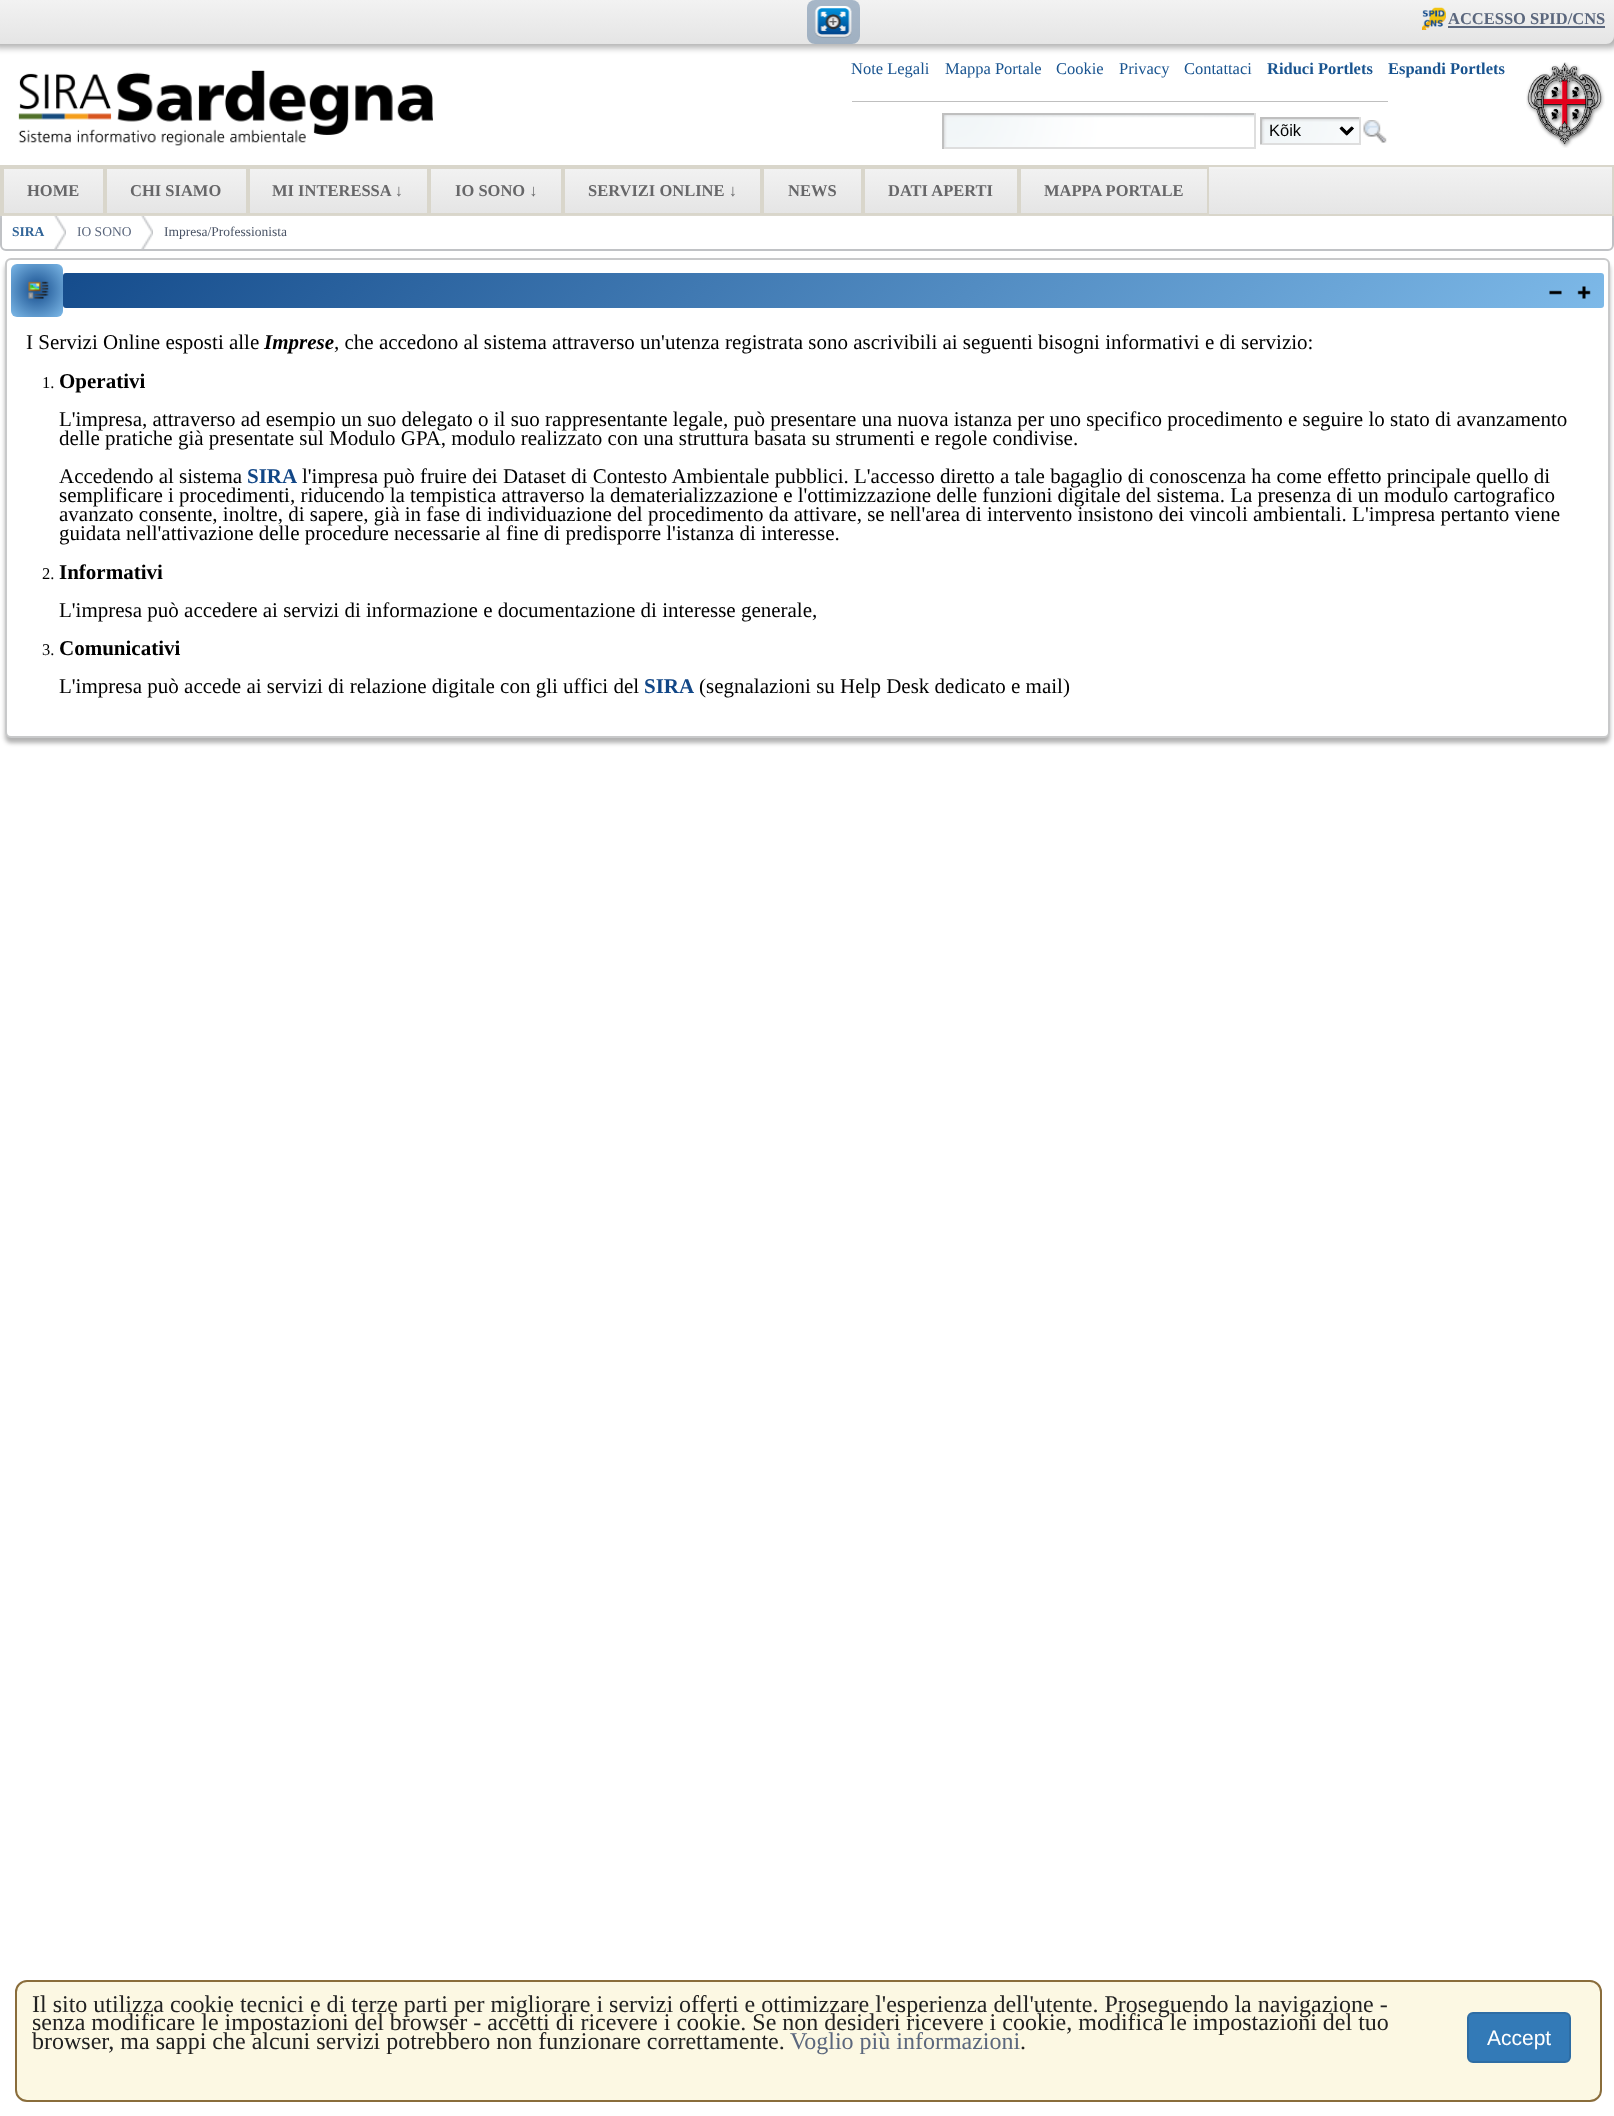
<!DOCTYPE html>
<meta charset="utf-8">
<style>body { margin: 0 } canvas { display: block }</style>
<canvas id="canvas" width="1614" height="2116"></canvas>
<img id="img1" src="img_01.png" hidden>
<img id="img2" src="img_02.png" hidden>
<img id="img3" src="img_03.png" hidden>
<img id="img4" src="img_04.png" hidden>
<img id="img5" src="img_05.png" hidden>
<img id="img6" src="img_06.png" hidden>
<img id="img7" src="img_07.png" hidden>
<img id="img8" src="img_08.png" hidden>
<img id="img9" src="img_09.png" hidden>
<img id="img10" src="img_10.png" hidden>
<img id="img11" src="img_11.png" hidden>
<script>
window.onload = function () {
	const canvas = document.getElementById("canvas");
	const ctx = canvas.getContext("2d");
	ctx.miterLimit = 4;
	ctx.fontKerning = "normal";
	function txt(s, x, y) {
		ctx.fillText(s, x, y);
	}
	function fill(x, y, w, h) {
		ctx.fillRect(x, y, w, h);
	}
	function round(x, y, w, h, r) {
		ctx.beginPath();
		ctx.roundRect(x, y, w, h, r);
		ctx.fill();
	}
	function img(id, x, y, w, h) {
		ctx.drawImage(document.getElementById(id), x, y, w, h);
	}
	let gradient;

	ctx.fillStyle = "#FFFFFF";
	fill(0, 0, 1614, 2116);
	ctx.fillStyle = "rgba(0, 0, 0, 0.3)";
	ctx.filter = "blur(3px)";
	ctx.beginPath();
	ctx.roundRect(-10, 5, 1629, 43, 8);
	ctx.fill();
	ctx.filter = "none";
	gradient = ctx.createLinearGradient(800, 0, 800, 44);
	gradient.addColorStop(0, "#F2F2F2");
	gradient.addColorStop(1, "#E5E5E5");
	ctx.fillStyle = gradient;
	ctx.beginPath();
	ctx.moveTo(-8, 0);
	ctx.lineTo(1614, 0);
	ctx.lineTo(1614, 36);
	ctx.bezierCurveTo(1614, 40.5, 1610.5, 44, 1606, 44);
	ctx.lineTo(0, 44);
	ctx.bezierCurveTo(-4.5, 44, -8, 40.5, -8, 36);
	ctx.closePath();
	ctx.fill();
	ctx.fillStyle = "rgba(92, 124, 157, 0.5)";
	round(807, 0, 53, 44, 8);
	img("img1", 814, 6, 38, 32);
	img("img2", 1422, 7, 24, 23);
	ctx.fillStyle = "#5B677D";
	fill(1448, 26, 157, 2);
	img("img3", 18, 70, 415, 76);
	ctx.fillStyle = "#BFBFBF";
	fill(852, 101, 536, 1);
	img("img4", 944, 115, 310, 32);
	fill(942, 113, 314, 2);
	ctx.fillStyle = "#DEDEDE";
	fill(1254, 113, 2, 36);
	fill(942, 147, 314, 2);
	ctx.fillStyle = "#BFBFBF";
	fill(942, 113, 2, 36);
	img("img5", 1262, 119, 97, 24);
	fill(1260, 117, 101, 2);
	ctx.fillStyle = "#DEDEDE";
	fill(1359, 117, 2, 27);
	fill(1260, 143, 101, 2);
	ctx.fillStyle = "#BFBFBF";
	fill(1260, 117, 2, 27);
	ctx.beginPath();
	ctx.moveTo(1340.5, 127.5);
	ctx.lineTo(1346.5, 133.5);
	ctx.lineTo(1352.5, 127.5);
	ctx.strokeStyle = "#000000";
	ctx.lineWidth = 3;
	ctx.stroke();
	img("img6", 1363, 120, 24, 23);
	img("img7", 1526, 62, 79, 86);
	ctx.beginPath();
	ctx.roundRect(1, 181, 1612, 69, 5);
	ctx.strokeStyle = "#C0C2C5";
	ctx.lineWidth = 2;
	ctx.stroke();
	img("img8", 54, 216, 12, 33);
	img("img8", 141, 216, 12, 33);
	ctx.fillStyle = "rgba(255, 255, 255, 0.07)";
	fill(0, 216, 1614, 2);
	gradient = ctx.createLinearGradient(807, 166, 807, 215);
	gradient.addColorStop(0, "#F2F2F2");
	gradient.addColorStop(1, "#E5E5E5");
	ctx.fillStyle = gradient;
	fill(1209, 169, 403, 45);
	ctx.fillStyle = "#F3F3F3";
	fill(1209, 167, 404, 2);
	ctx.strokeStyle = "#D9D6CB";
	ctx.strokeRect(1, 166, 1612, 49);
	ctx.fillStyle = "#DCD9CF";
	fill(2, 215, 103, 1);
	gradient = ctx.createLinearGradient(53, 168, 53, 213);
	gradient.addColorStop(0, "#F2F2F2");
	gradient.addColorStop(1, "#E5E5E5");
	ctx.fillStyle = gradient;
	fill(4, 169, 99, 44);
	ctx.strokeRect(3, 168, 101, 46);
	ctx.fillStyle = "#DCD9CF";
	ctx.beginPath();
	ctx.moveTo(105, 214);
	ctx.lineTo(105, 216);
	ctx.lineTo(248, 216);
	ctx.lineTo(248, 168);
	ctx.lineTo(248, 214);
	ctx.closePath();
	ctx.fill();
	gradient = ctx.createLinearGradient(176, 168, 176, 213);
	gradient.addColorStop(0, "#F2F2F2");
	gradient.addColorStop(1, "#E5E5E5");
	ctx.fillStyle = gradient;
	fill(107, 169, 139, 44);
	ctx.strokeRect(106, 168, 141, 46);
	ctx.fillStyle = "#DCD9CF";
	fill(248, 215, 181, 1);
	gradient = ctx.createLinearGradient(338, 168, 338, 213);
	gradient.addColorStop(0, "#F2F2F2");
	gradient.addColorStop(1, "#E5E5E5");
	ctx.fillStyle = gradient;
	fill(250, 169, 177, 44);
	ctx.strokeRect(249, 168, 179, 46);
	ctx.fillStyle = "rgba(255, 255, 255, 0.07)";
	ctx.beginPath();
	ctx.moveTo(429, 214);
	ctx.lineTo(429, 216);
	ctx.lineTo(563, 216);
	ctx.lineTo(563, 168);
	ctx.lineTo(562, 168);
	ctx.lineTo(562, 214);
	ctx.closePath();
	ctx.fill();
	gradient = ctx.createLinearGradient(496, 168, 496, 213);
	gradient.addColorStop(0, "#F2F2F2");
	gradient.addColorStop(1, "#E5E5E5");
	ctx.fillStyle = gradient;
	fill(431, 169, 130, 44);
	ctx.strokeRect(430, 168, 132, 46);
	ctx.fillStyle = "#DCD9CF";
	fill(563, 215, 199, 1);
	gradient = ctx.createLinearGradient(662, 168, 662, 213);
	gradient.addColorStop(0, "#F2F2F2");
	gradient.addColorStop(1, "#E5E5E5");
	ctx.fillStyle = gradient;
	fill(565, 169, 195, 44);
	ctx.strokeRect(564, 168, 197, 46);
	ctx.fillStyle = "rgba(255, 255, 255, 0.07)";
	ctx.beginPath();
	ctx.moveTo(762, 214);
	ctx.lineTo(762, 216);
	ctx.lineTo(863, 216);
	ctx.lineTo(863, 168);
	ctx.lineTo(862, 168);
	ctx.lineTo(862, 214);
	ctx.closePath();
	ctx.fill();
	gradient = ctx.createLinearGradient(812, 168, 812, 213);
	gradient.addColorStop(0, "#F2F2F2");
	gradient.addColorStop(1, "#E5E5E5");
	ctx.fillStyle = gradient;
	fill(764, 169, 97, 44);
	ctx.strokeRect(763, 168, 99, 46);
	ctx.fillStyle = "rgba(255, 255, 255, 0.07)";
	ctx.beginPath();
	ctx.moveTo(863, 214);
	ctx.lineTo(863, 216);
	ctx.lineTo(1019, 216);
	ctx.lineTo(1019, 168);
	ctx.lineTo(1018, 168);
	ctx.lineTo(1018, 214);
	ctx.closePath();
	ctx.fill();
	gradient = ctx.createLinearGradient(941, 168, 941, 213);
	gradient.addColorStop(0, "#F2F2F2");
	gradient.addColorStop(1, "#E5E5E5");
	ctx.fillStyle = gradient;
	fill(865, 169, 152, 44);
	ctx.strokeRect(864, 168, 154, 46);
	ctx.fillStyle = "#DCD9CF";
	fill(1019, 215, 190, 1);
	gradient = ctx.createLinearGradient(1114, 168, 1114, 213);
	gradient.addColorStop(0, "#F2F2F2");
	gradient.addColorStop(1, "#E5E5E5");
	ctx.fillStyle = gradient;
	fill(1021, 169, 186, 44);
	ctx.strokeRect(1020, 168, 188, 46);
	ctx.fillStyle = "rgba(0, 0, 0, 0.3)";
	ctx.filter = "blur(2px)";
	ctx.beginPath();
	ctx.roundRect(5, 263, 1605, 480, 6);
	ctx.fill();
	ctx.filter = "none";
	ctx.fillStyle = "#FFFFFF";
	ctx.beginPath();
	ctx.roundRect(6, 259, 1603, 478, 5);
	ctx.fill();
	ctx.strokeStyle = "#C8C9CA";
	ctx.stroke();
	gradient = ctx.createRadialGradient(37, 290, 0, 37, 290, 37);
	gradient.addColorStop(0, "#154C8C");
	gradient.addColorStop(1, "#7DB9E8");
	ctx.fillStyle = gradient;
	round(11, 264, 52, 53, 6);
	img("img9", 28, 281, 21, 18);
	gradient = ctx.createLinearGradient(439, -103, 1227, 684);
	gradient.addColorStop(0, "#154C8C");
	gradient.addColorStop(1, "#7DB9E8");
	ctx.fillStyle = gradient;
	round(63, 273, 1541, 35, 3);
	img("img10", 1549, 290, 13, 5);
	img("img11", 1577, 286, 14, 13);
	ctx.fillStyle = "#FCF8E3";
	ctx.beginPath();
	ctx.roundRect(16, 1981, 1585, 120, 11);
	ctx.fill();
	ctx.strokeStyle = "#8A6D3B";
	ctx.stroke();
	ctx.fillStyle = "#337AB7";
	ctx.beginPath();
	ctx.roundRect(1468, 2013, 102, 49, 5);
	ctx.fill();
	ctx.strokeStyle = "#2E6DA4";
	ctx.stroke();
	ctx.font = "bold 16.5px Liberation Serif";
	ctx.fillStyle = "#5B677D";
	txt("ACCESSO SPID/CNS", 1448, 24);
	ctx.font = "16.5px Liberation Serif";
	ctx.fillStyle = "#195490";
	txt("Note Legali", 851, 74);
	txt("Mappa Portale", 945, 74);
	txt("Cookie", 1056, 74);
	txt("Privacy", 1119, 74);
	txt("Contattaci", 1184, 74);
	ctx.font = "bold 16.5px Liberation Serif";
	txt("Riduci Portlets", 1267, 74);
	txt("Espandi Portlets", 1388, 74);
	ctx.font = "16.5px Liberation Sans";
	ctx.fillStyle = "#000000";
	txt("Kõik", 1269, 136);
	ctx.font = "bold 16.5px Liberation Serif";
	ctx.fillStyle = "#676769";
	txt("HOME", 27, 196);
	txt("CHI SIAMO", 130, 196);
	txt("MI INTERESSA ↓", 272, 196);
	txt("IO SONO ↓", 455, 196);
	txt("SERVIZI ONLINE ↓", 588, 196);
	txt("NEWS", 788, 196);
	txt("DATI APERTI", 888, 196);
	txt("MAPPA PORTALE", 1044, 196);
	ctx.font = "bold 13.5px Liberation Serif";
	ctx.fillStyle = "#336699";
	txt("SIRA", 12, 236);
	ctx.font = "13.5px Liberation Serif";
	ctx.fillStyle = "#5B677D";
	txt("IO SONO", 77, 236);
	ctx.fillStyle = "#4B5567";
	txt("Impresa/Professionista", 164, 236);
	ctx.font = "21px Liberation Serif";
	ctx.fillStyle = "#000000";
	txt("I Servizi Online esposti alle", 26, 349);
	ctx.font = "italic bold 21px Liberation Serif";
	txt("Imprese", 264, 349);
	ctx.font = "21px Liberation Serif";
	txt(", che accedono al sistema attraverso un'utenza registrata sono ascrivibili ai seguenti bisogni informativi e di servizio:", 334, 349);
	ctx.font = "16.5px Liberation Serif";
	txt("1.", 42, 388);
	ctx.font = "bold 21px Liberation Serif";
	txt("Operativi", 59, 388);
	ctx.font = "21px Liberation Serif";
	txt("L'impresa, attraverso ad esempio un suo delegato o il suo rappresentante legale, può presentare una nuova istanza per uno specifico procedimento e seguire lo stato di avanzamento", 59, 426);
	txt("delle pratiche già presentate sul Modulo GPA, modulo realizzato con una struttura basata su strumenti e regole condivise.", 59, 445);
	txt("Accedendo al sistema", 59, 483);
	ctx.font = "bold 21px Liberation Serif";
	ctx.fillStyle = "#114686";
	txt("SIRA", 247, 483);
	ctx.font = "21px Liberation Serif";
	ctx.fillStyle = "#000000";
	txt("l'impresa può fruire dei Dataset di Contesto Ambientale pubblici. L'accesso diretto a tale bagaglio di conoscenza ha come effetto principale quello di", 302, 483);
	txt("semplificare i procedimenti, riducendo la tempistica attraverso la dematerializzazione e l'ottimizzazione delle funzioni digitale del sistema. La presenza di un modulo cartografico", 59, 502);
	txt("avanzato consente, inoltre, di sapere, già in fase di individuazione del procedimento da attivare, se nell'area di intervento insistono dei vincoli ambientali. L'impresa pertanto viene", 59, 521);
	txt("guidata nell'attivazione delle procedure necessarie al fine di predisporre l'istanza di interesse.", 59, 540);
	ctx.font = "16.5px Liberation Serif";
	txt("2.", 42, 579);
	ctx.font = "bold 21px Liberation Serif";
	txt("Informativi", 59, 579);
	ctx.font = "21px Liberation Serif";
	txt("L'impresa può accedere ai servizi di informazione e documentazione di interesse generale,", 59, 617);
	ctx.font = "16.5px Liberation Serif";
	txt("3.", 42, 655);
	ctx.font = "bold 21px Liberation Serif";
	txt("Comunicativi", 59, 655);
	ctx.font = "21px Liberation Serif";
	txt("L'impresa può accede ai servizi di relazione digitale con gli uffici del", 59, 693);
	ctx.font = "bold 21px Liberation Serif";
	ctx.fillStyle = "#114686";
	txt("SIRA", 644, 693);
	ctx.font = "21px Liberation Serif";
	ctx.fillStyle = "#000000";
	txt("(segnalazioni su Help Desk dedicato e mail)", 699, 693);
	ctx.font = "24px Liberation Serif";
	ctx.fillStyle = "#222222";
	txt("Il sito utilizza cookie tecnici e di terze parti per migliorare i servizi offerti e ottimizzare l'esperienza dell'utente. Proseguendo la navigazione -", 32, 2012);
	txt("senza modificare le impostazioni del browser - accetti di ricevere i cookie. Se non desideri ricevere i cookie, modifica le impostazioni del tuo", 32, 2030);
	txt("browser, ma sappi che alcuni servizi potrebbero non funzionare correttamente.", 32, 2049);
	ctx.fillStyle = "#5B677D";
	txt("Voglio più informazioni", 790, 2049);
	ctx.fillStyle = "#222222";
	txt(".", 1020, 2049);
	ctx.font = "21px Liberation Sans";
	ctx.fillStyle = "#FFFFFF";
	txt("Accept", 1487, 2045);
};
</script>
